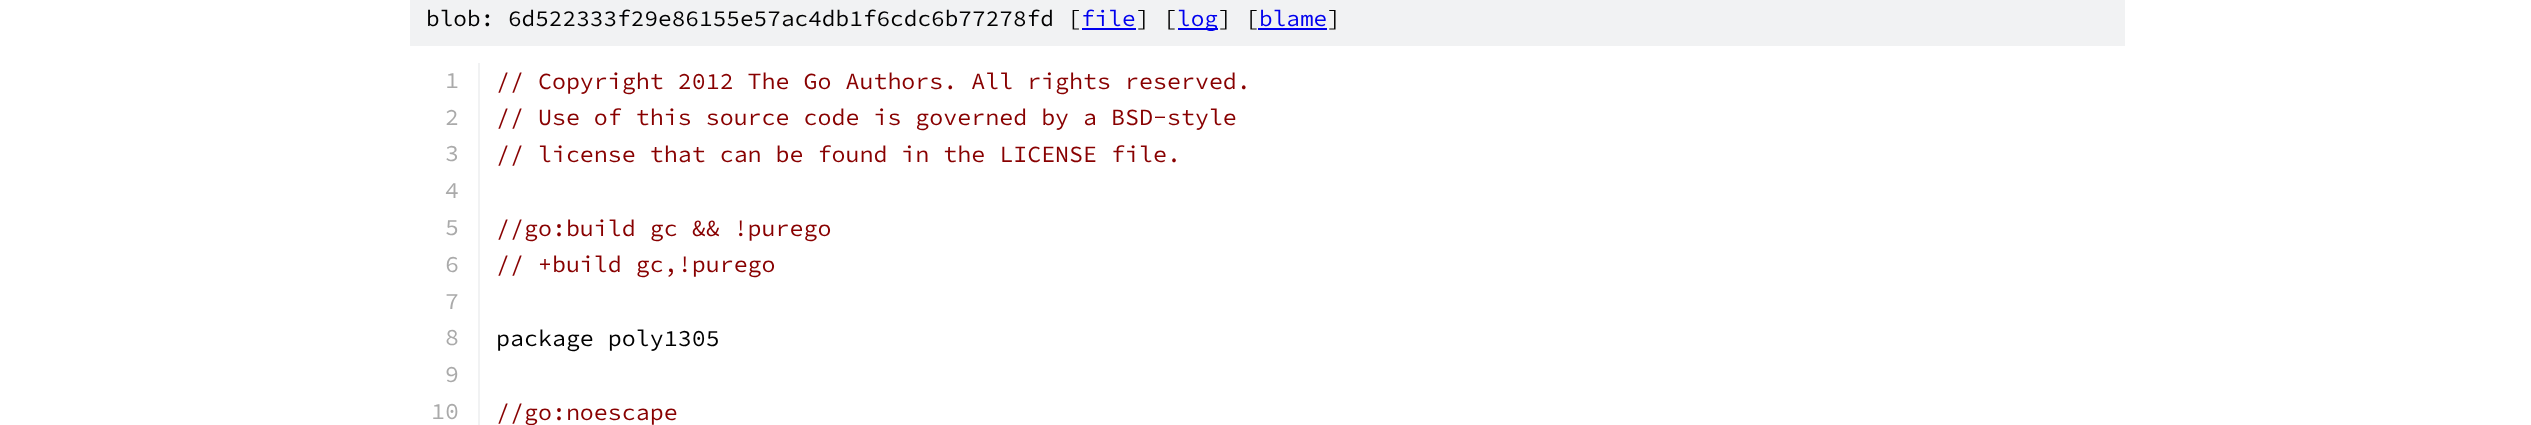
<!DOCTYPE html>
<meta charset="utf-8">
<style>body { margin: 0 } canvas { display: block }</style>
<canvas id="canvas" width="2531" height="425"></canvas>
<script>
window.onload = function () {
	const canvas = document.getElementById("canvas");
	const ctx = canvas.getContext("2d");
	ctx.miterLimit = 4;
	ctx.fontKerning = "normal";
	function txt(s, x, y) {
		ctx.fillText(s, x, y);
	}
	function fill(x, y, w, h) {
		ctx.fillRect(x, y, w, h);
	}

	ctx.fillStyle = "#FFFFFF";
	fill(0, 0, 2531, 425);
	ctx.fillStyle = "#F1F2F3";
	fill(410, 0, 1715, 46);
	ctx.fillStyle = "#0000EE";
	fill(1082, 28, 54, 2);
	fill(1178, 28, 40, 2);
	fill(1258, 28, 69, 2);
	ctx.fillStyle = "#F1F2F3";
	fill(478, 63, 2, 362);
	ctx.font = "200 22.75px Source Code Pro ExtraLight";
	ctx.fillStyle = "#000000";
	txt("blob: 6d522333f29e86155e57ac4db1f6cdc6b77278fd [", 426, 26);
	ctx.fillStyle = "#0000EE";
	txt("file", 1081, 26);
	ctx.fillStyle = "#000000";
	txt("] [", 1136, 26);
	ctx.fillStyle = "#0000EE";
	txt("log", 1177, 26);
	ctx.fillStyle = "#000000";
	txt("] [", 1218, 26);
	ctx.fillStyle = "#0000EE";
	txt("blame", 1259, 26);
	ctx.fillStyle = "#000000";
	txt("]", 1327, 26);
	ctx.font = "200 23.3px Source Code Pro ExtraLight";
	ctx.fillStyle = "#AAAAAA";
	txt("1", 445, 88);
	ctx.fillStyle = "#880000";
	txt("// Copyright 2012 The Go Authors. All rights reserved.", 496, 89);
	ctx.fillStyle = "#AAAAAA";
	txt("2", 445, 125);
	ctx.fillStyle = "#880000";
	txt("// Use of this source code is governed by a BSD-style", 496, 125);
	ctx.fillStyle = "#AAAAAA";
	txt("3", 445, 161);
	ctx.fillStyle = "#880000";
	txt("// license that can be found in the LICENSE file.", 496, 162);
	ctx.fillStyle = "#AAAAAA";
	txt("4", 445, 198);
	txt("5", 445, 235);
	ctx.fillStyle = "#880000";
	txt("//go:build gc && !purego", 496, 236);
	ctx.fillStyle = "#AAAAAA";
	txt("6", 445, 272);
	ctx.fillStyle = "#880000";
	txt("// +build gc,!purego", 496, 272);
	ctx.fillStyle = "#AAAAAA";
	txt("7", 445, 309);
	txt("8", 445, 345);
	ctx.fillStyle = "#000000";
	txt("package poly1305", 496, 346);
	ctx.fillStyle = "#AAAAAA";
	txt("9", 445, 382);
	txt("10", 431, 419);
	ctx.fillStyle = "#880000";
	txt("//go:noescape", 496, 420);
};
</script>
